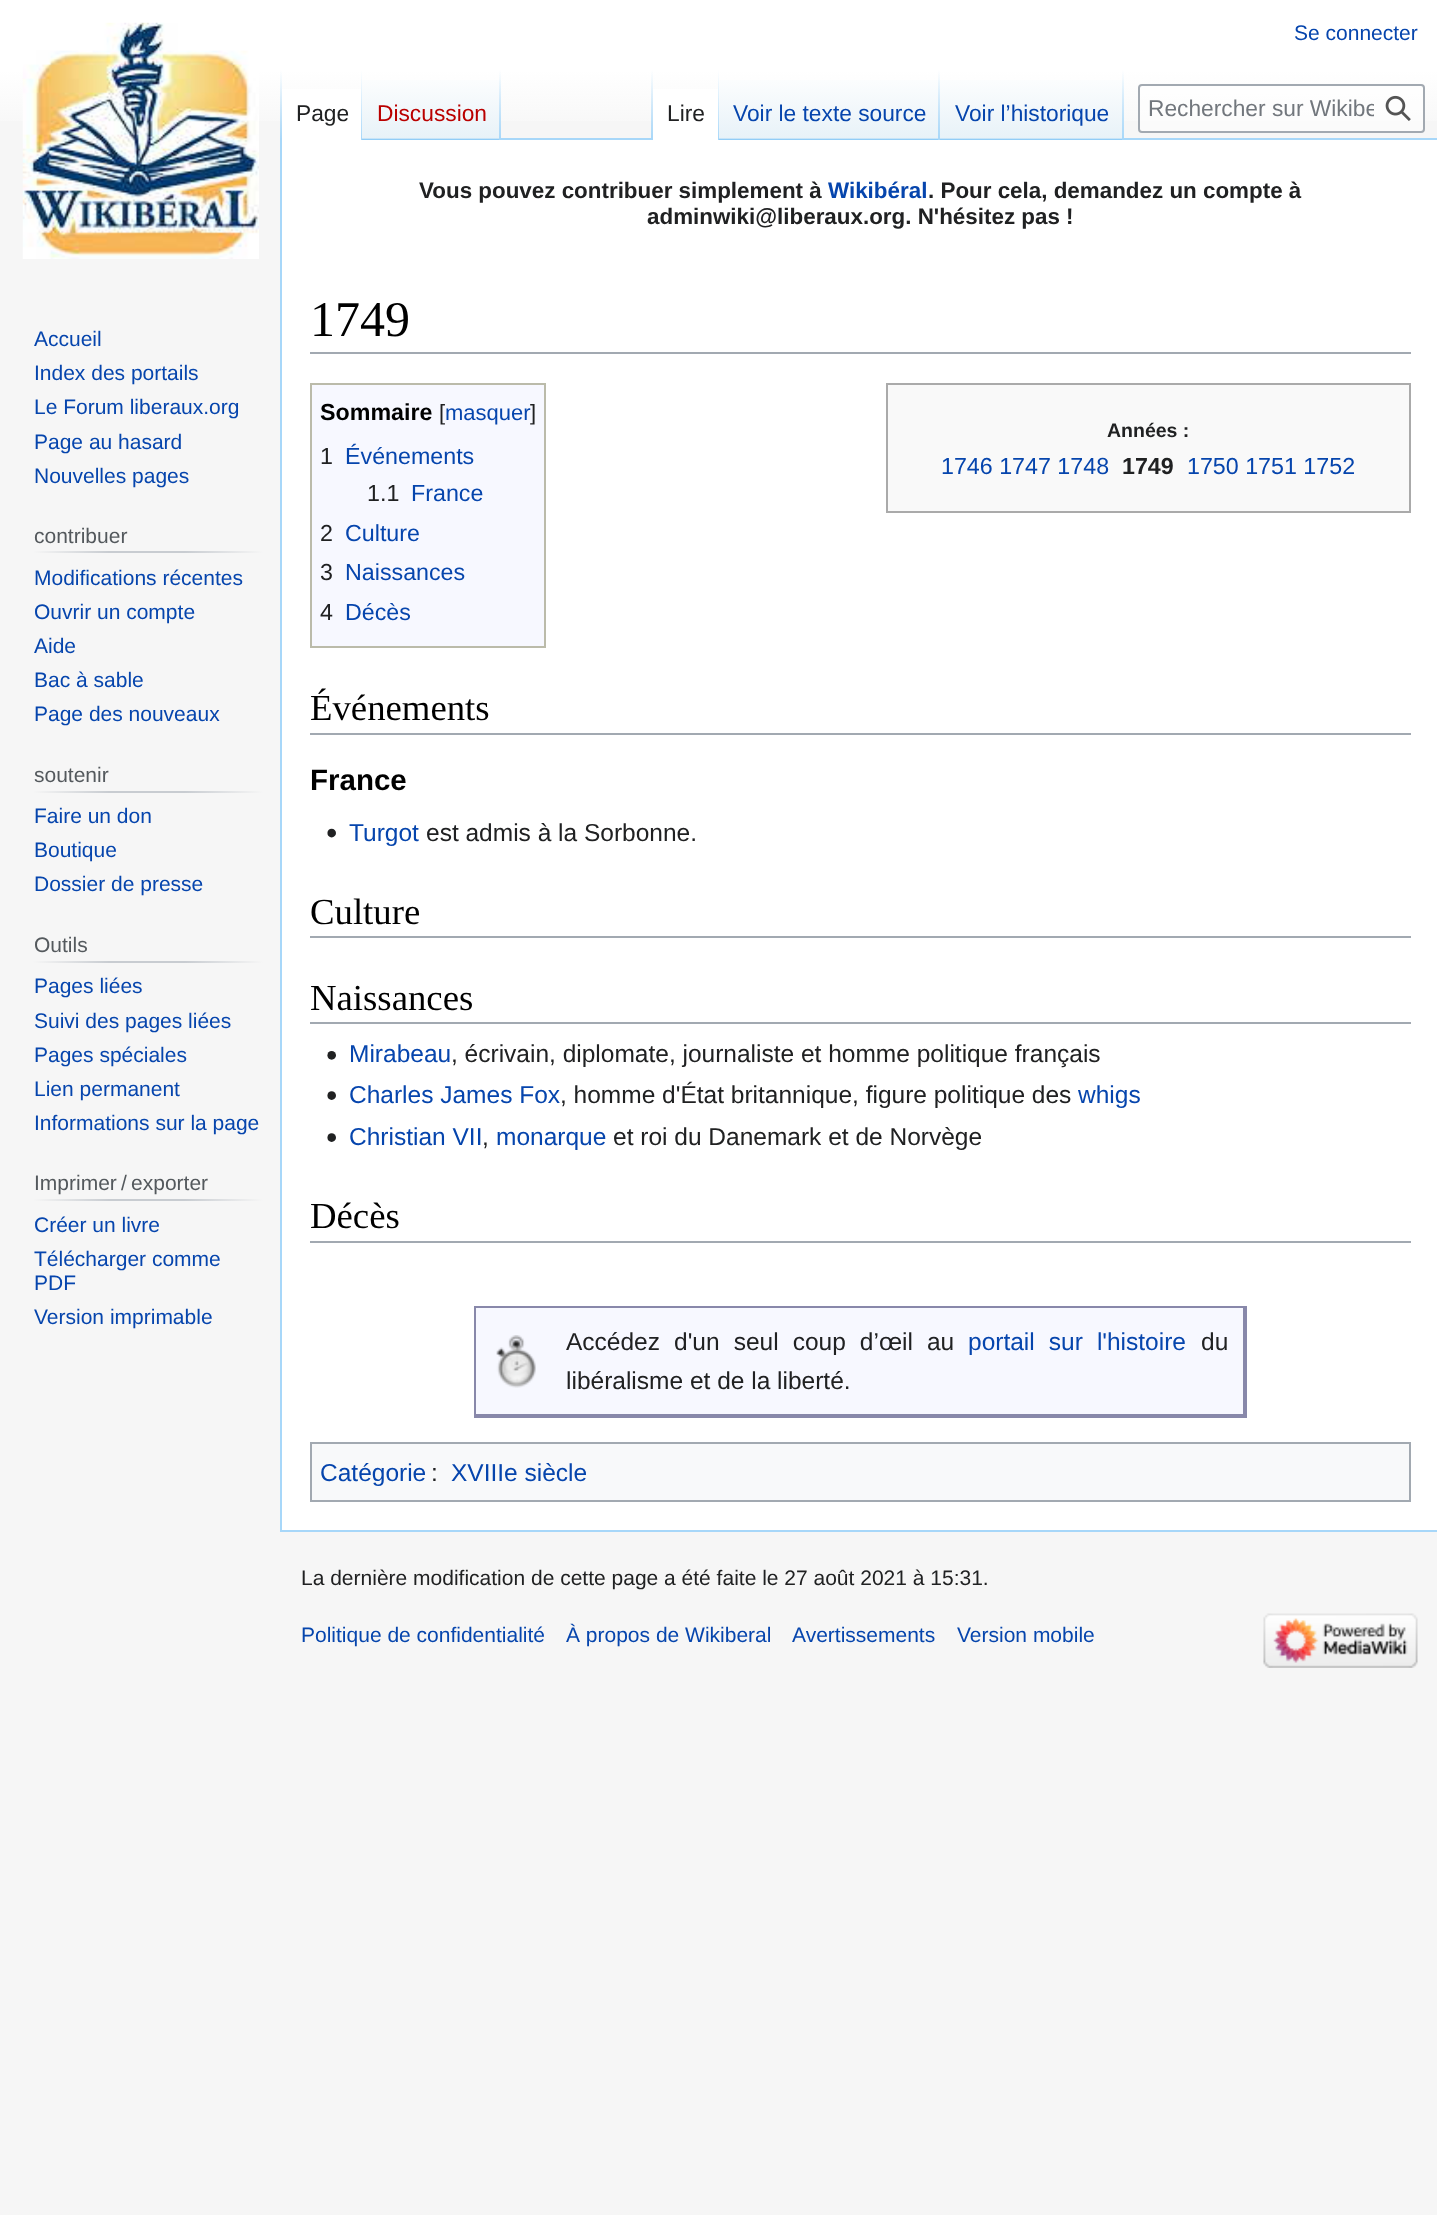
<!DOCTYPE html>
<meta charset="utf-8">
<style>body { margin: 0 } canvas { display: block }</style>
<canvas id="canvas" width="1437" height="2215"></canvas>
<img id="img1" src="img_01.png" hidden>
<img id="img2" src="img_02.png" hidden>
<img id="img3" src="img_03.png" hidden>
<img id="img4" src="img_04.png" hidden>
<img id="img5" src="img_05.png" hidden>
<img id="img6" src="img_06.png" hidden>
<img id="img7" src="img_07.png" hidden>
<script>
window.onload = function () {
	const canvas = document.getElementById("canvas");
	const ctx = canvas.getContext("2d");
	ctx.miterLimit = 4;
	ctx.fontKerning = "normal";
	function txt(s, x, y) {
		ctx.fillText(s, x, y);
	}
	function fill(x, y, w, h) {
		ctx.fillRect(x, y, w, h);
	}
	function img(id, x, y, w, h) {
		ctx.drawImage(document.getElementById(id), x, y, w, h);
	}
	let gradient;

	ctx.fillStyle = "#F6F6F6";
	fill(0, 0, 1437, 2215);
	gradient = ctx.createLinearGradient(719, 0, 719, 140);
	gradient.addColorStop(0.5, "#FFFFFF");
	gradient.addColorStop(1, "#F6F6F6");
	ctx.fillStyle = gradient;
	fill(0, 0, 1437, 121);
	ctx.fillStyle = "#A7D7F9";
	fill(280, 1530, 1157, 2);
	fill(280, 138, 2, 1393);
	gradient = ctx.createLinearGradient(281, 70, 281, 140);
	gradient.addColorStop(0, "rgba(167, 215, 249, 0)");
	gradient.addColorStop(1, "#A7D7F9");
	ctx.fillStyle = gradient;
	fill(280, 70, 2, 70);
	ctx.fillStyle = "#FFFFFF";
	fill(282, 89, 79, 51);
	gradient = ctx.createLinearGradient(361, 70, 361, 140);
	gradient.addColorStop(0, "#FFFFFF");
	gradient.addColorStop(1, "#A7D7F9");
	ctx.fillStyle = gradient;
	fill(361, 70, 1, 70);
	gradient = ctx.createLinearGradient(431, 140, 431, 70);
	gradient.addColorStop(0, "#77C1F6");
	gradient.addColorStop(0.03, "#E8F2F8");
	gradient.addColorStop(1, "#FFFFFF");
	ctx.fillStyle = gradient;
	fill(362, 80, 139, 60);
	gradient = ctx.createLinearGradient(500, 70, 500, 140);
	gradient.addColorStop(0, "rgba(167, 215, 249, 0)");
	gradient.addColorStop(1, "#A7D7F9");
	ctx.fillStyle = gradient;
	fill(499, 70, 2, 70);
	ctx.fillStyle = "#A7D7F9";
	fill(501, 138, 936, 2);
	gradient = ctx.createLinearGradient(652, 70, 652, 140);
	gradient.addColorStop(0, "rgba(167, 215, 249, 0)");
	gradient.addColorStop(1, "#A7D7F9");
	ctx.fillStyle = gradient;
	fill(651, 70, 2, 70);
	ctx.fillStyle = "#FFFFFF";
	fill(653, 89, 65, 51);
	gradient = ctx.createLinearGradient(718, 70, 718, 140);
	gradient.addColorStop(0, "#FFFFFF");
	gradient.addColorStop(1, "#A7D7F9");
	ctx.fillStyle = gradient;
	fill(718, 70, 1, 70);
	gradient = ctx.createLinearGradient(830, 140, 830, 70);
	gradient.addColorStop(0, "#77C1F6");
	gradient.addColorStop(0.03, "#E8F2F8");
	gradient.addColorStop(1, "#FFFFFF");
	ctx.fillStyle = gradient;
	fill(719, 80, 221, 60);
	gradient = ctx.createLinearGradient(939, 70, 939, 140);
	gradient.addColorStop(0, "rgba(167, 215, 249, 0)");
	gradient.addColorStop(1, "#A7D7F9");
	ctx.fillStyle = gradient;
	fill(938, 70, 2, 70);
	gradient = ctx.createLinearGradient(1032, 140, 1032, 70);
	gradient.addColorStop(0, "#77C1F6");
	gradient.addColorStop(0.03, "#E8F2F8");
	gradient.addColorStop(1, "#FFFFFF");
	ctx.fillStyle = gradient;
	fill(940, 80, 184, 60);
	gradient = ctx.createLinearGradient(1123, 70, 1123, 140);
	gradient.addColorStop(0, "rgba(167, 215, 249, 0)");
	gradient.addColorStop(1, "#A7D7F9");
	ctx.fillStyle = gradient;
	fill(1122, 70, 2, 70);
	ctx.fillStyle = "rgba(255, 255, 255, 0.5)";
	ctx.beginPath();
	ctx.roundRect(1139, 85, 285, 47, 3);
	ctx.fill();
	ctx.strokeStyle = "#A2A9B1";
	ctx.lineWidth = 2;
	ctx.stroke();
	img("img1", 1385, 95, 26, 26);
	img("img2", 22, 22, 237, 237);
	gradient = ctx.createLinearGradient(33, 552, 263, 552);
	gradient.addColorStop(0, "#F6F6F6");
	gradient.addColorStop(0.33, "#C8CCD1");
	gradient.addColorStop(0.66, "#C8CCD1");
	gradient.addColorStop(1, "#F6F6F6");
	ctx.fillStyle = gradient;
	fill(33, 551, 230, 2);
	gradient = ctx.createLinearGradient(33, 792, 263, 792);
	gradient.addColorStop(0, "#F6F6F6");
	gradient.addColorStop(0.33, "#C8CCD1");
	gradient.addColorStop(0.66, "#C8CCD1");
	gradient.addColorStop(1, "#F6F6F6");
	ctx.fillStyle = gradient;
	fill(33, 791, 230, 2);
	gradient = ctx.createLinearGradient(33, 962, 263, 962);
	gradient.addColorStop(0, "#F6F6F6");
	gradient.addColorStop(0.33, "#C8CCD1");
	gradient.addColorStop(0.66, "#C8CCD1");
	gradient.addColorStop(1, "#F6F6F6");
	ctx.fillStyle = gradient;
	fill(33, 961, 230, 2);
	gradient = ctx.createLinearGradient(33, 1200, 263, 1200);
	gradient.addColorStop(0, "#F6F6F6");
	gradient.addColorStop(0.33, "#C8CCD1");
	gradient.addColorStop(0.66, "#C8CCD1");
	gradient.addColorStop(1, "#F6F6F6");
	ctx.fillStyle = gradient;
	fill(33, 1199, 230, 2);
	ctx.fillStyle = "#FFFFFF";
	fill(282, 140, 1155, 1390);
	ctx.fillStyle = "#A2A9B1";
	fill(310, 352, 1101, 2);
	ctx.fillStyle = "#F7F8FF";
	ctx.beginPath();
	ctx.rect(311, 384, 234, 263);
	ctx.fill();
	ctx.strokeStyle = "#BBBBAA";
	ctx.stroke();
	ctx.fillStyle = "#F9F9F9";
	ctx.beginPath();
	ctx.rect(887, 384, 523, 128);
	ctx.fill();
	ctx.strokeStyle = "#AAAAAA";
	ctx.stroke();
	ctx.fillStyle = "#A2A9B1";
	fill(310, 733, 1101, 2);
	img("img3", 327, 828, 9, 10);
	fill(310, 936, 1101, 2);
	fill(310, 1022, 1101, 2);
	img("img4", 327, 1051, 9, 9);
	img("img5", 327, 1091, 9, 9);
	img("img5", 327, 1133, 9, 9);
	fill(310, 1241, 1101, 2);
	ctx.fillStyle = "#F7F8FF";
	fill(476, 1308, 767, 106);
	ctx.fillStyle = "#8888AA";
	fill(474, 1306, 772, 2);
	fill(1243, 1306, 4, 112);
	fill(474, 1414, 772, 4);
	fill(474, 1306, 2, 112);
	img("img6", 496, 1335, 40, 53);
	ctx.fillStyle = "#F8F9FA";
	ctx.beginPath();
	ctx.rect(311, 1443, 1099, 58);
	ctx.fill();
	ctx.strokeStyle = "#A2A9B1";
	ctx.stroke();
	img("img7", 1263, 1613, 155, 55);
	ctx.font = "21px Liberation Sans";
	ctx.fillStyle = "#0645AD";
	txt("Se connecter", 1294, 40);
	ctx.font = "22.75px Liberation Sans";
	ctx.fillStyle = "#202122";
	txt("Page", 296, 121);
	ctx.fillStyle = "#BA0000";
	txt("Discussion", 377, 121);
	ctx.fillStyle = "#202122";
	txt("Lire", 667, 121);
	ctx.fillStyle = "#0645AD";
	txt("Voir le texte source", 733, 121);
	txt("Voir l’historique", 955, 121);
	ctx.save();
	ctx.beginPath();
	ctx.rect(1148, 96, 226, 27);
	ctx.clip();
	ctx.fillStyle = "#72777D";
	txt("Rechercher sur Wikibe", 1148, 116);
	ctx.restore();
	ctx.font = "21px Liberation Sans";
	txt("Accueil", 34, 346);
	txt("Index des portails", 34, 380);
	txt("Le Forum liberaux.org", 34, 414);
	txt("Page au hasard", 34, 449);
	txt("Nouvelles pages", 34, 483);
	ctx.fillStyle = "#54595D";
	txt("contribuer", 34, 543);
	ctx.fillStyle = "#0645AD";
	txt("Modifications récentes", 34, 585);
	txt("Ouvrir un compte", 34, 619);
	txt("Aide", 34, 653);
	txt("Bac à sable", 34, 687);
	txt("Page des nouveaux", 34, 721);
	ctx.fillStyle = "#54595D";
	txt("soutenir", 34, 782);
	ctx.fillStyle = "#0645AD";
	txt("Faire un don", 34, 823);
	txt("Boutique", 34, 857);
	txt("Dossier de presse", 34, 891);
	ctx.fillStyle = "#54595D";
	txt("Outils", 34, 952);
	ctx.fillStyle = "#0645AD";
	txt("Pages liées", 34, 993);
	txt("Suivi des pages liées", 34, 1028);
	txt("Pages spéciales", 34, 1062);
	txt("Lien permanent", 34, 1096);
	txt("Informations sur la page", 34, 1130);
	ctx.fillStyle = "#54595D";
	txt("Imprimer / exporter", 34, 1190);
	ctx.fillStyle = "#0645AD";
	txt("Créer un livre", 34, 1232);
	txt("Télécharger comme", 34, 1266);
	txt("PDF", 34, 1290);
	txt("Version imprimable", 34, 1324);
	ctx.font = "bold 22.4px Liberation Sans";
	ctx.fillStyle = "#202122";
	txt("Vous pouvez contribuer simplement à", 419, 198);
	ctx.fillStyle = "#0645AD";
	txt("Wikibéral", 828, 198);
	ctx.fillStyle = "#202122";
	txt(". Pour cela, demandez un compte à", 928, 198);
	txt("adminwiki@liberaux.org. N'hésitez pas !", 647, 224);
	ctx.font = "50px Liberation Serif";
	ctx.fillStyle = "#000000";
	txt("1749", 310, 336);
	ctx.font = "bold 23.25px Liberation Sans";
	txt("Sommaire", 320, 420);
	ctx.font = "22px Liberation Sans";
	ctx.fillStyle = "#202122";
	txt("[", 439, 420);
	ctx.fillStyle = "#0645AD";
	txt("masquer", 445, 420);
	ctx.fillStyle = "#202122";
	txt("]", 530, 420);
	ctx.font = "23.25px Liberation Sans";
	txt("1", 320, 464);
	ctx.fillStyle = "#0645AD";
	txt("Événements", 345, 464);
	ctx.fillStyle = "#202122";
	txt("1.1", 367, 501);
	ctx.fillStyle = "#0645AD";
	txt("France", 411, 501);
	ctx.fillStyle = "#202122";
	txt("2", 320, 541);
	ctx.fillStyle = "#0645AD";
	txt("Culture", 345, 541);
	ctx.fillStyle = "#202122";
	txt("3", 320, 580);
	ctx.fillStyle = "#0645AD";
	txt("Naissances", 345, 580);
	ctx.fillStyle = "#202122";
	txt("4", 320, 620);
	ctx.fillStyle = "#0645AD";
	txt("Décès", 345, 620);
	ctx.font = "bold 19.5px Liberation Sans";
	ctx.fillStyle = "#202122";
	txt("Années :", 1107, 437);
	ctx.font = "23.25px Liberation Sans";
	ctx.fillStyle = "#0645AD";
	txt("1746 1747 1748", 941, 474);
	ctx.font = "bold 23.25px Liberation Sans";
	ctx.fillStyle = "#202122";
	txt("1749", 1122, 474);
	ctx.font = "23.25px Liberation Sans";
	ctx.fillStyle = "#0645AD";
	txt("1750 1751 1752", 1187, 474);
	ctx.font = "36.75px Liberation Serif";
	ctx.fillStyle = "#000000";
	txt("Événements", 310, 720);
	ctx.font = "bold 29.5px Liberation Sans";
	txt("France", 310, 790);
	ctx.font = "24.5px Liberation Sans";
	ctx.fillStyle = "#0645AD";
	txt("Turgot", 349, 841);
	ctx.fillStyle = "#202122";
	txt("est admis à la Sorbonne.", 426, 841);
	ctx.font = "36.75px Liberation Serif";
	ctx.fillStyle = "#000000";
	txt("Culture", 310, 924);
	txt("Naissances", 310, 1010);
	ctx.font = "24.5px Liberation Sans";
	ctx.fillStyle = "#0645AD";
	txt("Mirabeau", 349, 1062);
	ctx.fillStyle = "#202122";
	txt(", écrivain, diplomate, journaliste et homme politique français", 451, 1062);
	ctx.fillStyle = "#0645AD";
	txt("Charles James Fox", 349, 1103);
	ctx.fillStyle = "#202122";
	txt(", homme d'État britannique, figure politique des", 560, 1103);
	ctx.fillStyle = "#0645AD";
	txt("whigs", 1078, 1103);
	txt("Christian VII", 349, 1145);
	ctx.fillStyle = "#202122";
	txt(",", 482, 1145);
	ctx.fillStyle = "#0645AD";
	txt("monarque", 496, 1145);
	ctx.fillStyle = "#202122";
	txt("et roi du Danemark et de Norvège", 613, 1145);
	ctx.font = "36.75px Liberation Serif";
	ctx.fillStyle = "#000000";
	txt("Décès", 310, 1228);
	ctx.wordSpacing = "7.25px";
	ctx.font = "24.5px Liberation Sans";
	ctx.fillStyle = "#202122";
	txt("Accédez d'un seul coup d’œil au", 566, 1350);
	ctx.fillStyle = "#0645AD";
	txt("portail sur l'histoire", 968, 1350);
	ctx.wordSpacing = "0px";
	ctx.fillStyle = "#202122";
	txt("du", 1201, 1350);
	txt("libéralisme et de la liberté.", 566, 1389);
	ctx.fillStyle = "#0645AD";
	txt("Catégorie", 320, 1481);
	ctx.fillStyle = "#202122";
	txt(":", 431, 1481);
	ctx.fillStyle = "#0645AD";
	txt("XVIIIe siècle", 451, 1481);
	ctx.font = "21px Liberation Sans";
	ctx.fillStyle = "#202122";
	txt("La dernière modification de cette page a été faite le 27 août 2021 à 15:31.", 301, 1585);
	ctx.fillStyle = "#0645AD";
	txt("Politique de confidentialité", 301, 1642);
	txt("À propos de Wikiberal", 566, 1642);
	txt("Avertissements", 792, 1642);
	txt("Version mobile", 957, 1642);
};
</script>
